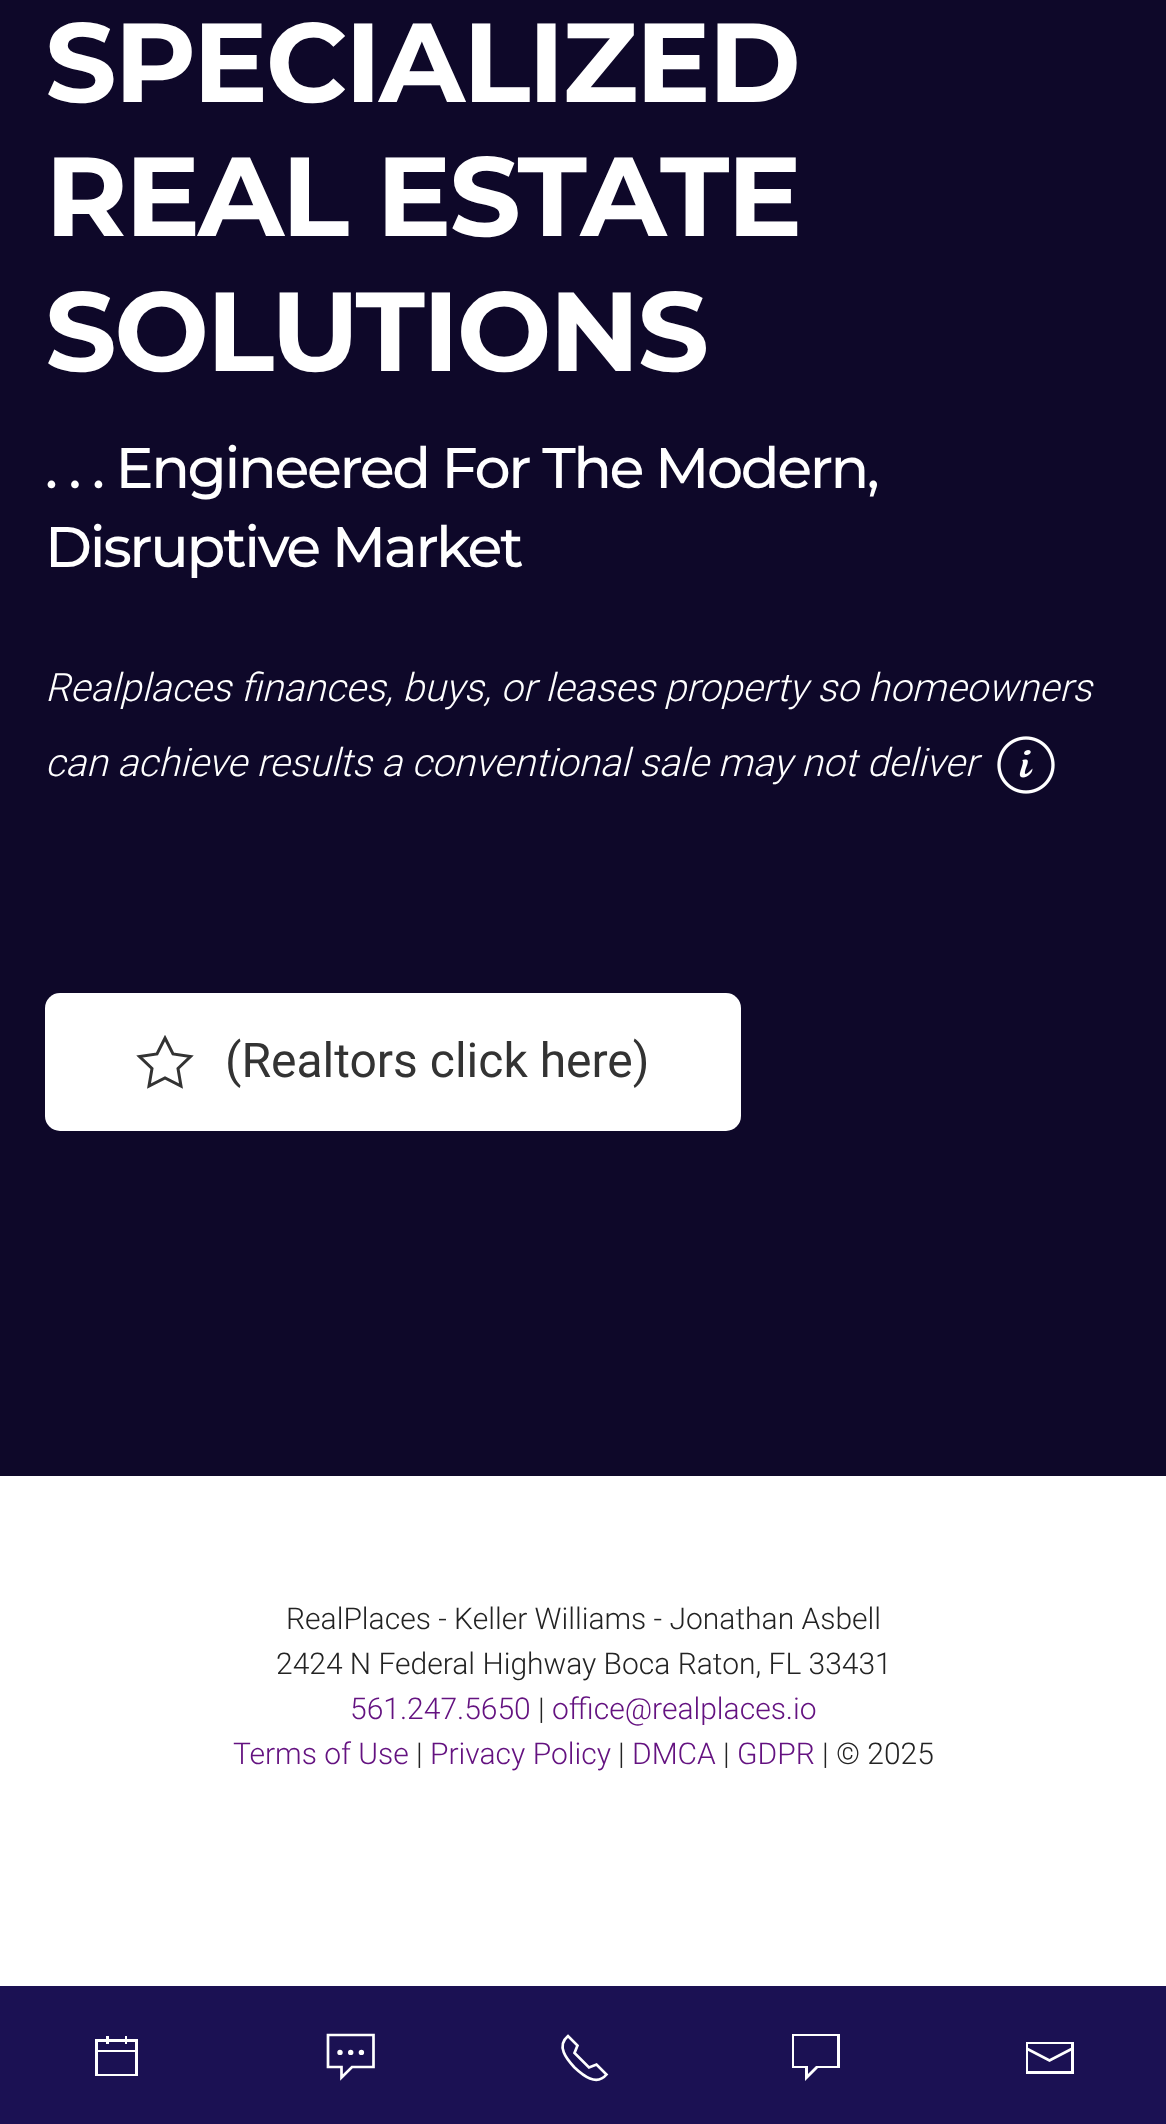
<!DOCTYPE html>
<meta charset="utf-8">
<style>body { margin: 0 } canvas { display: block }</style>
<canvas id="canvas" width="1166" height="2124"></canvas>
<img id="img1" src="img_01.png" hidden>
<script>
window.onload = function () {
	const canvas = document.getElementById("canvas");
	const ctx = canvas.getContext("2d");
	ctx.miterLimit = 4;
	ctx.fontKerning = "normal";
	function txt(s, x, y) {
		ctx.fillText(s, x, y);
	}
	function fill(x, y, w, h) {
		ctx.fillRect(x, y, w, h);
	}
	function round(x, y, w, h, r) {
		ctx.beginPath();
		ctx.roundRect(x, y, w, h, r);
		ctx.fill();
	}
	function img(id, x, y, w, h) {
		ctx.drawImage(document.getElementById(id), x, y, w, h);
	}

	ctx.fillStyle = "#FFFFFF";
	fill(0, 0, 1166, 2124);
	ctx.fillStyle = "#0E0829";
	fill(0, 0, 1166, 1476);
	img("img1", 997, 736, 58, 58);
	ctx.fillStyle = "#FFFFFF";
	round(45, 993, 696, 138, 15);
	ctx.beginPath();
	ctx.moveTo(165, 1038);
	ctx.lineTo(173, 1054);
	ctx.lineTo(190.5, 1056.5);
	ctx.lineTo(178, 1068.5);
	ctx.lineTo(181, 1086);
	ctx.lineTo(165, 1078);
	ctx.lineTo(149, 1086);
	ctx.lineTo(152, 1068.5);
	ctx.lineTo(139.5, 1056.5);
	ctx.lineTo(157, 1054);
	ctx.closePath();
	ctx.strokeStyle = "#333333";
	ctx.lineWidth = 3;
	ctx.stroke();
	ctx.fillStyle = "#1B1153";
	fill(0, 1986, 1166, 138);
	ctx.fillStyle = "#FFFFFF";
	ctx.beginPath();
	ctx.moveTo(95, 2039);
	ctx.lineTo(95, 2076);
	ctx.lineTo(138, 2076);
	ctx.lineTo(138, 2039);
	ctx.closePath();
	ctx.moveTo(135, 2074);
	ctx.lineTo(98, 2074);
	ctx.lineTo(98, 2052);
	ctx.lineTo(135, 2052);
	ctx.closePath();
	ctx.moveTo(135, 2050);
	ctx.lineTo(98, 2050);
	ctx.lineTo(98, 2042);
	ctx.lineTo(135, 2042);
	ctx.closePath();
	ctx.fill();
	fill(106, 2036, 3, 8);
	fill(125, 2036, 2, 8);
	ctx.beginPath();
	ctx.moveTo(328, 2035);
	ctx.lineTo(373.5, 2035);
	ctx.lineTo(373.5, 2067);
	ctx.lineTo(352, 2067);
	ctx.lineTo(341.5, 2077.5);
	ctx.lineTo(341.5, 2067);
	ctx.lineTo(328, 2067);
	ctx.closePath();
	ctx.strokeStyle = "#FFFFFF";
	ctx.lineWidth = 2.7;
	ctx.stroke();
	ctx.beginPath();
	ctx.arc(340, 2052.4, 2.7, 0, Math.PI * 2);
	ctx.fill();
	ctx.beginPath();
	ctx.arc(350.7, 2052.4, 2.7, 0, Math.PI * 2);
	ctx.fill();
	ctx.beginPath();
	ctx.arc(361.4, 2052.4, 2.7, 0, Math.PI * 2);
	ctx.fill();
	ctx.beginPath();
	ctx.moveTo(574.5, 2067.5);
	ctx.bezierCurveTo(583, 2075.5, 596.5, 2086.5, 606.5, 2074.5);
	ctx.lineTo(596.5, 2064.5);
	ctx.lineTo(589, 2067.5);
	ctx.lineTo(574.5, 2053);
	ctx.lineTo(577.5, 2045.5);
	ctx.lineTo(568, 2036);
	ctx.bezierCurveTo(556, 2046, 566.5, 2059, 574.5, 2067.5);
	ctx.stroke();
	ctx.beginPath();
	ctx.moveTo(805, 2081);
	ctx.lineTo(805, 2068);
	ctx.lineTo(792, 2068);
	ctx.lineTo(792, 2034);
	ctx.lineTo(840, 2034);
	ctx.lineTo(840, 2068);
	ctx.lineTo(818, 2068);
	ctx.closePath();
	ctx.moveTo(794, 2066);
	ctx.lineTo(808, 2066);
	ctx.lineTo(808, 2074);
	ctx.lineTo(816, 2066);
	ctx.lineTo(837, 2066);
	ctx.lineTo(837, 2036);
	ctx.lineTo(794, 2036);
	ctx.closePath();
	ctx.fill();
	ctx.beginPath();
	ctx.moveTo(1026.5, 2048.5);
	ctx.lineTo(1049.5, 2060.5);
	ctx.lineTo(1072.5, 2048.5);
	ctx.stroke();
	ctx.beginPath();
	ctx.moveTo(1026, 2042);
	ctx.lineTo(1026, 2074);
	ctx.lineTo(1074, 2074);
	ctx.lineTo(1074, 2042);
	ctx.closePath();
	ctx.moveTo(1071, 2071);
	ctx.lineTo(1028, 2071);
	ctx.lineTo(1028, 2044);
	ctx.lineTo(1071, 2044);
	ctx.closePath();
	ctx.fill();
	ctx.letterSpacing = "-2.4px";
	ctx.font = "100 112.25px Montserrat";
	txt("SPECIALIZED", 45, 102);
	txt("REAL ESTATE", 45, 236);
	txt("SOLUTIONS", 45, 371);
	ctx.font = "100 57px 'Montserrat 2'";
	txt(". . . Engineered For The Modern,", 45, 488);
	txt("Disruptive Market", 45, 567);
	ctx.letterSpacing = "0px";
	ctx.font = "italic 300 39px Roboto";
	txt("Realplaces finances, buys, or leases property so homeowners", 45, 701);
	txt("can achieve results a conventional sale may not deliver", 45, 776);
	ctx.font = "48px Roboto";
	ctx.fillStyle = "#333333";
	txt("(Realtors click here)", 225, 1077);
	ctx.font = "300 30px Roboto";
	ctx.fillStyle = "#232323";
	txt("RealPlaces - Keller Williams - Jonathan Asbell", 286, 1629);
	txt("2424 N Federal Highway Boca Raton, FL 33431", 276, 1674);
	ctx.fillStyle = "#641280";
	txt("561.247.5650", 350, 1719);
	ctx.fillStyle = "#232323";
	txt("|", 538, 1719);
	ctx.fillStyle = "#641280";
	txt("office@realplaces.io", 552, 1719);
	txt("Terms of Use", 233, 1764);
	ctx.fillStyle = "#232323";
	txt("|", 416, 1764);
	ctx.fillStyle = "#641280";
	txt("Privacy Policy", 430, 1764);
	ctx.fillStyle = "#232323";
	txt("|", 618, 1764);
	ctx.fillStyle = "#641280";
	txt("DMCA", 632, 1764);
	ctx.fillStyle = "#232323";
	txt("|", 723, 1764);
	ctx.fillStyle = "#641280";
	txt("GDPR", 737, 1764);
	ctx.fillStyle = "#232323";
	txt("| © 2025", 822, 1764);
};
</script>
